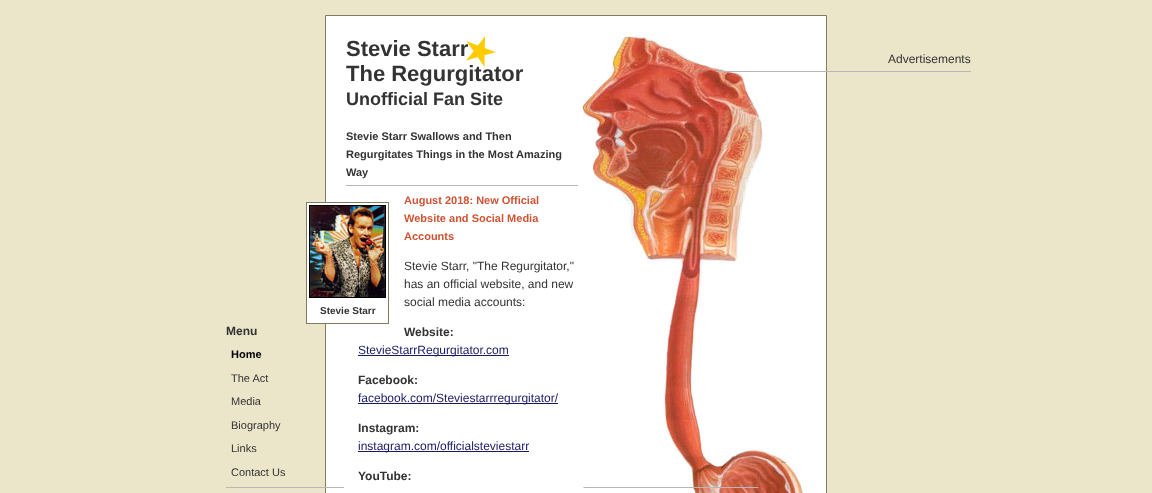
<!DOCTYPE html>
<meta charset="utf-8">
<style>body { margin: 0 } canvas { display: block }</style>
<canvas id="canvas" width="1152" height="493"></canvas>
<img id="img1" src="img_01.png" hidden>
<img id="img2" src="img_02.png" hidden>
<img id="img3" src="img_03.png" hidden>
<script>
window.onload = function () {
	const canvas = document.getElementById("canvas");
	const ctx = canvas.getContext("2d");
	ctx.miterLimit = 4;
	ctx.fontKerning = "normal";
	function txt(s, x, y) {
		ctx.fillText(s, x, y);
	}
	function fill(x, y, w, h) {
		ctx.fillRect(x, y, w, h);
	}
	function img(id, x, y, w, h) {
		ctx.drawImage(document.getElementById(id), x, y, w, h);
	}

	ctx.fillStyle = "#EBE5C9";
	fill(0, 0, 1152, 493);
	ctx.fillStyle = "#FFFFFF";
	ctx.beginPath();
	ctx.rect(325.5, 15.5, 501, 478);
	ctx.fill();
	ctx.strokeStyle = "#807C5F";
	ctx.stroke();
	img("img1", 582, 32, 225, 461);
	img("img2", 466, 36, 30, 31);
	ctx.fillStyle = "#B8B6B8";
	fill(346, 185, 232, 1);
	ctx.fillStyle = "#FFFFFF";
	fill(307, 203, 19, 120);
	ctx.strokeRect(306.5, 202.5, 82, 121);
	ctx.strokeStyle = "#000000";
	ctx.strokeRect(309.5, 205.5, 76, 92);
	img("img3", 310, 206, 75, 91);
	ctx.fillStyle = "#181A68";
	fill(358, 355, 151, 1);
	fill(358, 403, 200, 1);
	fill(358, 451, 171, 1);
	ctx.fillStyle = "#B8B6B8";
	fill(716, 71, 255, 1);
	ctx.fillStyle = "#B8B6B9";
	fill(226, 487, 118, 1);
	ctx.font = "bold 22px Liberation Sans";
	ctx.fillStyle = "#333333";
	txt("Stevie Starr", 346, 56);
	txt("The Regurgitator", 346, 81);
	ctx.font = "bold 18px Liberation Sans";
	txt("Unofficial Fan Site", 346, 105);
	ctx.font = "bold 11px Liberation Sans";
	txt("Stevie Starr Swallows and Then", 346, 140);
	txt("Regurgitates Things in the Most Amazing", 346, 158);
	txt("Way", 346, 176);
	ctx.fillStyle = "#CF5435";
	txt("August 2018: New Official", 404, 204);
	txt("Website and Social Media", 404, 222);
	txt("Accounts", 404, 240);
	ctx.font = "12px Liberation Sans";
	ctx.fillStyle = "#333333";
	txt("Stevie Starr, \"The Regurgitator,\"", 404, 270);
	txt("has an official website, and new", 404, 288);
	txt("social media accounts:", 404, 306);
	ctx.font = "bold 10px Liberation Sans";
	txt("Stevie Starr", 320, 314);
	ctx.font = "bold 12px Liberation Sans";
	txt("Website:", 404, 336);
	ctx.font = "12px Liberation Sans";
	ctx.fillStyle = "#181A68";
	txt("StevieStarrRegurgitator.com", 358, 354);
	ctx.font = "bold 12px Liberation Sans";
	ctx.fillStyle = "#333333";
	txt("Facebook:", 358, 384);
	ctx.font = "12px Liberation Sans";
	ctx.fillStyle = "#181A68";
	txt("facebook.com/Steviestarrregurgitator/", 358, 402);
	ctx.font = "bold 12px Liberation Sans";
	ctx.fillStyle = "#333333";
	txt("Instagram:", 358, 432);
	ctx.font = "12px Liberation Sans";
	ctx.fillStyle = "#181A68";
	txt("instagram.com/officialsteviestarr", 358, 450);
	ctx.font = "bold 12px Liberation Sans";
	ctx.fillStyle = "#333333";
	txt("YouTube:", 358, 480);
	ctx.font = "12px Liberation Sans";
	txt("Advertisements", 888, 63);
	ctx.font = "bold 12px Liberation Sans";
	txt("Menu", 226, 335);
	ctx.font = "bold 11px Liberation Sans";
	ctx.fillStyle = "#000000";
	txt("Home", 231, 358);
	ctx.font = "11px Liberation Sans";
	ctx.fillStyle = "#333333";
	txt("The Act", 231, 382);
	txt("Media", 231, 405);
	txt("Biography", 231, 429);
	txt("Links", 231, 452);
	txt("Contact Us", 231, 476);
};
</script>
